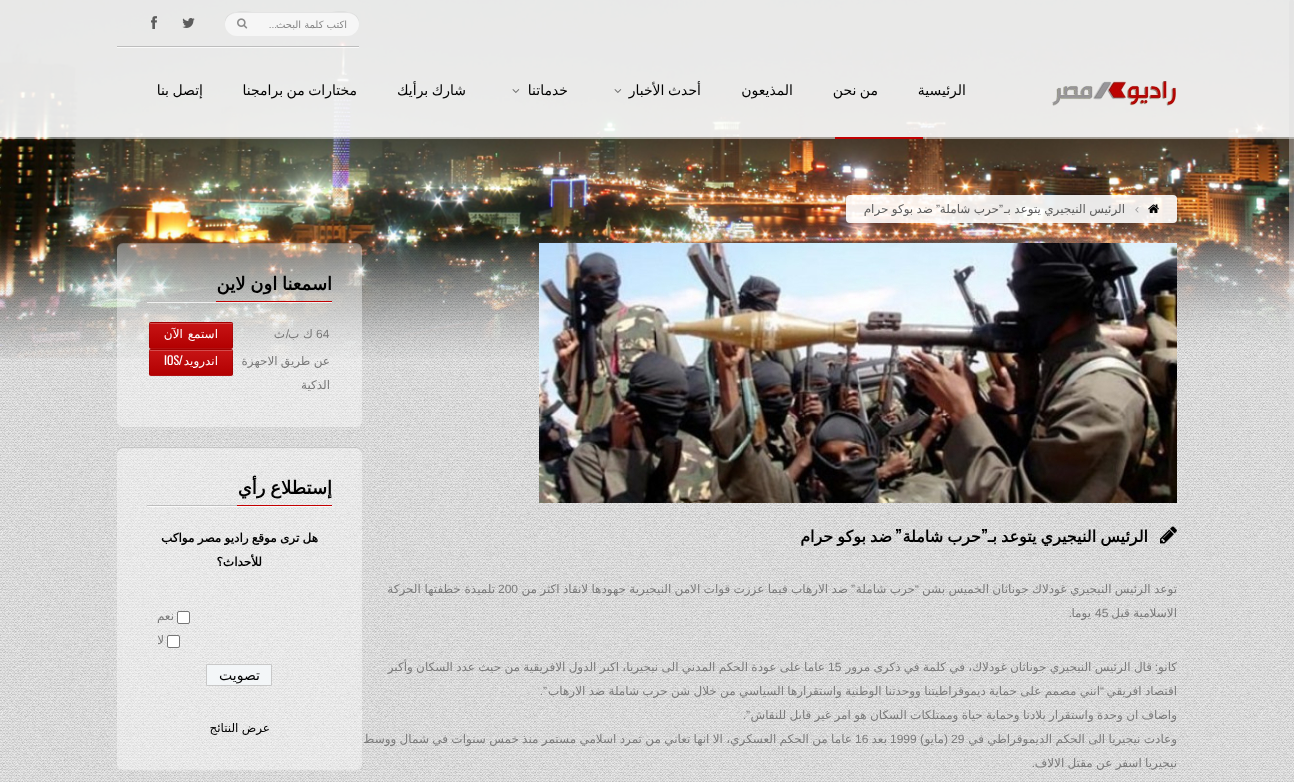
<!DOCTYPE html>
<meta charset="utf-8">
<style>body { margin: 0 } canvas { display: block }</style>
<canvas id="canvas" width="1294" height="782"></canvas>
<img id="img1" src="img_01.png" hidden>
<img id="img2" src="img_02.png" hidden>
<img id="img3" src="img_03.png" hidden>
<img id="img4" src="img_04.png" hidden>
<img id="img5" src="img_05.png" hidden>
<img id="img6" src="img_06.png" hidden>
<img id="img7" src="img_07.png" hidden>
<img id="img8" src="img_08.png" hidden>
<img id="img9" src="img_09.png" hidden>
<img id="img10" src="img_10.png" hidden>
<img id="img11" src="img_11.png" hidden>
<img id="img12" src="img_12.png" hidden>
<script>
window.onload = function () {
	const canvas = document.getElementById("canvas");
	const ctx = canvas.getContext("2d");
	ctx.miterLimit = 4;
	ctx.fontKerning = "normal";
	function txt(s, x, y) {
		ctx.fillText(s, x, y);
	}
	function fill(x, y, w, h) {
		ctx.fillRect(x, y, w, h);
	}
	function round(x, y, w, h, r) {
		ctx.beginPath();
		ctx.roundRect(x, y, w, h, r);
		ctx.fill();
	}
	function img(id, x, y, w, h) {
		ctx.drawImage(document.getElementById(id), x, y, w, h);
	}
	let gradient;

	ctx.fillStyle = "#FFFFFF";
	fill(0, 0, 1294, 782);
	img("img1", 0, 0, 1294, 782);
	img("img2", 0, 0, 1294, 358);
	ctx.fillStyle = "rgba(255, 255, 255, 0.5)";
	fill(0, 137, 1294, 2);
	ctx.fillStyle = "rgba(255, 255, 255, 0.9)";
	fill(0, 0, 1294, 137);
	ctx.fillStyle = "rgba(221, 221, 221, 0.38)";
	round(1289, 0, 5, 448, 2);
	ctx.fillStyle = "rgba(255, 255, 255, 0.75)";
	fill(117, 47, 242, 1);
	ctx.fillStyle = "#BDBDBD";
	fill(117, 46, 242, 1);
	ctx.fillStyle = "#F6F6F6";
	round(225, 12, 134, 24, 12);
	ctx.fillStyle = "rgba(0, 0, 0, 0.07)";
	ctx.beginPath();
	ctx.moveTo(237, 13);
	ctx.lineTo(347, 13);
	ctx.bezierCurveTo(354, 13, 359, 18, 359, 24);
	ctx.bezierCurveTo(360, 8, 338, 12, 329, 12);
	ctx.lineTo(255, 12);
	ctx.bezierCurveTo(246, 12, 224, 8, 225, 24);
	ctx.bezierCurveTo(225, 18, 230, 13, 237, 13);
	ctx.closePath();
	ctx.fill();
	img("img3", 237, 18, 11, 11);
	img("img4", 182, 18, 13, 10);
	img("img5", 151, 16, 6, 13);
	img("img6", 1052, 81, 124, 25);
	img("img7", 614, 89, 8, 4);
	img("img8", 512, 89, 8, 4);
	ctx.fillStyle = "#C20001";
	fill(835, 137, 88, 2);
	ctx.fillStyle = "rgba(255, 255, 255, 0.9)";
	round(846, 195, 331, 28, 4);
	img("img9", 1148, 204, 11, 9);
	img("img10", 1135, 207, 4, 6);
	img("img11", 539, 243, 638, 260);
	img("img12", 1160, 526, 17, 18);
	ctx.fillStyle = "rgba(255, 255, 255, 0.04)";
	ctx.beginPath();
	ctx.moveTo(117, 421);
	ctx.bezierCurveTo(117, 425, 119, 428, 123, 428);
	ctx.lineTo(357, 428);
	ctx.bezierCurveTo(361, 427, 362, 424, 362, 421);
	ctx.bezierCurveTo(362, 424, 359, 427, 356, 427);
	ctx.lineTo(123, 427);
	ctx.bezierCurveTo(120, 427, 117, 424, 117, 421);
	ctx.closePath();
	ctx.fill();
	ctx.fillStyle = "rgba(255, 255, 255, 0.4)";
	round(117, 243, 245, 184, 6);
	ctx.fillStyle = "rgba(0, 0, 0, 0.15)";
	ctx.beginPath();
	ctx.moveTo(123, 244);
	ctx.lineTo(356, 244);
	ctx.bezierCurveTo(359, 244, 362, 247, 362, 250);
	ctx.bezierCurveTo(362, 246, 360, 243, 356, 243);
	ctx.lineTo(122, 243);
	ctx.bezierCurveTo(118, 244, 117, 247, 117, 250);
	ctx.bezierCurveTo(117, 247, 120, 244, 123, 244);
	ctx.closePath();
	ctx.fill();
	ctx.fillStyle = "#C20001";
	fill(216, 301, 116, 1);
	ctx.fillStyle = "rgba(255, 255, 255, 0.75)";
	fill(147, 302, 185, 1);
	ctx.fillStyle = "#BDBDBD";
	fill(147, 301, 69, 1);
	ctx.fillStyle = "#C20001";
	round(149, 322, 84, 27, 2);
	gradient = ctx.createLinearGradient(150, 323, 150, 298);
	gradient.addColorStop(0, "rgba(0, 0, 0, 0.08)");
	gradient.addColorStop(0.5, "rgba(128, 128, 128, 0.08)");
	gradient.addColorStop(1, "rgba(255, 255, 255, 0.08)");
	ctx.fillStyle = gradient;
	fill(149, 322, 84, 1);
	gradient = ctx.createLinearGradient(150, 348, 150, 323);
	gradient.addColorStop(0, "rgba(0, 0, 0, 0.08)");
	gradient.addColorStop(0.5, "rgba(128, 128, 128, 0.08)");
	gradient.addColorStop(1, "rgba(255, 255, 255, 0.08)");
	ctx.fillStyle = gradient;
	fill(149, 323, 84, 25);
	gradient = ctx.createLinearGradient(150, 373, 150, 348);
	gradient.addColorStop(0, "rgba(0, 0, 0, 0.08)");
	gradient.addColorStop(0.5, "rgba(128, 128, 128, 0.08)");
	gradient.addColorStop(1, "rgba(255, 255, 255, 0.08)");
	ctx.fillStyle = gradient;
	fill(149, 348, 84, 1);
	ctx.beginPath();
	ctx.roundRect(149.5, 322.5, 83, 26, 1.5);
	ctx.strokeStyle = "rgba(0, 0, 0, 0.1)";
	ctx.stroke();
	ctx.fillStyle = "rgba(255, 255, 255, 0.24)";
	fill(150, 323, 82, 1);
	ctx.fillStyle = "#C20001";
	round(149, 349, 84, 27, 2);
	gradient = ctx.createLinearGradient(150, 350, 150, 325);
	gradient.addColorStop(0, "rgba(0, 0, 0, 0.08)");
	gradient.addColorStop(0.5, "rgba(128, 128, 128, 0.08)");
	gradient.addColorStop(1, "rgba(255, 255, 255, 0.08)");
	ctx.fillStyle = gradient;
	fill(149, 349, 84, 1);
	gradient = ctx.createLinearGradient(150, 375, 150, 350);
	gradient.addColorStop(0, "rgba(0, 0, 0, 0.08)");
	gradient.addColorStop(0.5, "rgba(128, 128, 128, 0.08)");
	gradient.addColorStop(1, "rgba(255, 255, 255, 0.08)");
	ctx.fillStyle = gradient;
	fill(149, 350, 84, 25);
	gradient = ctx.createLinearGradient(150, 400, 150, 375);
	gradient.addColorStop(0, "rgba(0, 0, 0, 0.08)");
	gradient.addColorStop(0.5, "rgba(128, 128, 128, 0.08)");
	gradient.addColorStop(1, "rgba(255, 255, 255, 0.08)");
	ctx.fillStyle = gradient;
	fill(149, 375, 84, 1);
	ctx.beginPath();
	ctx.roundRect(149.5, 349.5, 83, 26, 1.5);
	ctx.stroke();
	ctx.fillStyle = "rgba(255, 255, 255, 0.24)";
	fill(150, 350, 82, 1);
	ctx.fillStyle = "rgba(255, 255, 255, 0.04)";
	ctx.beginPath();
	ctx.moveTo(117, 764);
	ctx.bezierCurveTo(117, 768, 119, 771, 123, 771);
	ctx.lineTo(357, 771);
	ctx.bezierCurveTo(361, 770, 362, 767, 362, 764);
	ctx.bezierCurveTo(362, 767, 359, 770, 356, 770);
	ctx.lineTo(123, 770);
	ctx.bezierCurveTo(120, 770, 117, 767, 117, 764);
	ctx.closePath();
	ctx.fill();
	ctx.fillStyle = "rgba(255, 255, 255, 0.4)";
	round(117, 447, 245, 323, 6);
	ctx.fillStyle = "rgba(0, 0, 0, 0.15)";
	ctx.beginPath();
	ctx.moveTo(123, 448);
	ctx.lineTo(356, 448);
	ctx.bezierCurveTo(359, 448, 362, 451, 362, 454);
	ctx.bezierCurveTo(362, 450, 360, 447, 356, 447);
	ctx.lineTo(122, 447);
	ctx.bezierCurveTo(118, 448, 117, 451, 117, 454);
	ctx.bezierCurveTo(117, 451, 120, 448, 123, 448);
	ctx.closePath();
	ctx.fill();
	ctx.fillStyle = "#C20001";
	fill(237, 505, 95, 1);
	ctx.fillStyle = "rgba(255, 255, 255, 0.75)";
	fill(147, 506, 185, 1);
	ctx.fillStyle = "#BDBDBD";
	fill(147, 505, 90, 1);
	ctx.fillStyle = "#FFFFFF";
	ctx.beginPath();
	ctx.roundRect(177.5, 611.5, 12, 12, 1.5);
	ctx.fill();
	ctx.strokeStyle = "#767676";
	ctx.stroke();
	ctx.beginPath();
	ctx.roundRect(167.5, 635.5, 12, 12, 1.5);
	ctx.fill();
	ctx.stroke();
	ctx.fillStyle = "#F3F6F8";
	ctx.beginPath();
	ctx.rect(206.5, 664.5, 65, 21);
	ctx.fill();
	ctx.strokeStyle = "#C8C8C8";
	ctx.stroke();
	ctx.direction = "rtl";
	ctx.font = "10px DejaVu Sans";
	ctx.fillStyle = "#868686";
	txt("اكتب كلمة البحث", 347, 28);
	ctx.font = "10px Liberation Sans";
	txt("...", 277, 28);
	ctx.font = "14px DejaVu Sans";
	ctx.fillStyle = "#000000";
	txt("الرئيسية", 966, 95);
	ctx.wordSpacing = "-1px";
	txt("من نحن", 878, 95);
	ctx.wordSpacing = "0px";
	txt("المذيعون", 793, 95);
	ctx.wordSpacing = "-1px";
	txt("أحدث الأخبار", 701, 95);
	ctx.wordSpacing = "0px";
	txt("خدماتنا", 568, 95);
	ctx.wordSpacing = "-1px";
	txt("شارك برأيك", 466, 95);
	txt("مختارات من برامجنا", 357, 95);
	txt("إتصل بنا", 203, 95);
	ctx.wordSpacing = "-0.5px";
	ctx.font = "12px DejaVu Sans";
	ctx.fillStyle = "#5C5C5C";
	txt("الرئيس النيجيري يتوعد بـ", 1125, 213);
	ctx.wordSpacing = "0px";
	ctx.font = "12px Liberation Sans";
	txt("”", 1003, 213);
	ctx.wordSpacing = "-0.5px";
	ctx.font = "12px DejaVu Sans";
	txt("حرب شاملة", 999, 213);
	ctx.wordSpacing = "0px";
	ctx.font = "12px Liberation Sans";
	txt("”", 940, 213);
	ctx.wordSpacing = "-0.5px";
	ctx.font = "12px DejaVu Sans";
	txt("ضد بوكو حرام", 933, 213);
	ctx.wordSpacing = "-1px";
	ctx.font = "bold 16px DejaVu Sans";
	ctx.fillStyle = "#000000";
	txt("الرئيس النيجيري يتوعد بـ", 1148, 542);
	ctx.wordSpacing = "0px";
	ctx.font = "bold 16px Oswald";
	txt("”", 988, 542);
	ctx.wordSpacing = "-1px";
	ctx.font = "bold 16px DejaVu Sans";
	txt("حرب شاملة", 981, 542);
	ctx.wordSpacing = "0px";
	ctx.font = "bold 16px Oswald";
	txt("”", 902, 542);
	ctx.wordSpacing = "-1px";
	ctx.font = "bold 16px DejaVu Sans";
	txt("ضد بوكو حرام", 892, 542);
	ctx.wordSpacing = "-0.5px";
	ctx.font = "12px DejaVu Sans";
	ctx.fillStyle = "#7A7A7A";
	txt("توعد الرئيس النيجيري غودلاك جوناثان الخميس بشن", 1177, 593);
	ctx.wordSpacing = "0px";
	ctx.font = "12px Liberation Sans";
	txt("“", 919, 593);
	ctx.wordSpacing = "-0.5px";
	ctx.font = "12px DejaVu Sans";
	txt("حرب شاملة", 915, 593);
	txt("ضد الارهاب فيما عززت قوات الامن النيجيرية جهودها لانقاذ اكثر من", 848, 593);
	ctx.wordSpacing = "0px";
	ctx.font = "12px Liberation Sans";
	txt("”", 855, 593);
	ctx.direction = "ltr";
	txt("200", 498, 593);
	ctx.direction = "rtl";
	ctx.font = "12px DejaVu Sans";
	txt("تلميذة خطفتها الحركة", 495, 593);
	ctx.wordSpacing = "-0.5px";
	txt("الاسلامية قبل", 1177, 617);
	ctx.wordSpacing = "0px";
	ctx.direction = "ltr";
	ctx.font = "12px Liberation Sans";
	txt("45", 1095, 617);
	ctx.direction = "rtl";
	ctx.font = "12px DejaVu Sans";
	txt("يوما", 1091, 617);
	ctx.font = "12px Liberation Sans";
	txt(".", 1072, 617);
	ctx.font = "12px DejaVu Sans";
	txt("كانو", 1177, 671);
	ctx.font = "12px Liberation Sans";
	txt(":", 1158, 671);
	ctx.wordSpacing = "-0.5px";
	ctx.font = "12px DejaVu Sans";
	txt("قال الرئيس النيجيري جوناثان غودلاك، في كلمة في ذكرى مرور", 1152, 671);
	txt("عاما على عودة الحكم المدني الى نيجيريا، اكبر الدول الافريقية من حيث عدد السكان وأكبر", 825, 671);
	ctx.wordSpacing = "0px";
	ctx.direction = "ltr";
	ctx.font = "12px Liberation Sans";
	txt("15", 828, 671);
	ctx.wordSpacing = "-0.5px";
	ctx.direction = "rtl";
	ctx.font = "12px DejaVu Sans";
	txt("اقتصاد افريقي", 1177, 695);
	txt("انني مصمم على حماية ديموقراطيتنا ووحدتنا الوطنية واستقرارها السياسي من خلال شن حرب شاملة ضد الارهاب", 1100, 695);
	ctx.wordSpacing = "0px";
	ctx.font = "12px Liberation Sans";
	txt("”.", 547, 695);
	txt("“", 1104, 695);
	ctx.wordSpacing = "-0.5px";
	ctx.font = "12px DejaVu Sans";
	txt("واضاف ان وحدة واستقرار بلادنا وحماية حياة وممتلكات السكان هو امر غير قابل للنقاش", 1177, 719);
	ctx.wordSpacing = "0px";
	ctx.font = "12px Liberation Sans";
	txt("”.", 750, 719);
	ctx.wordSpacing = "-0.5px";
	ctx.font = "12px DejaVu Sans";
	txt("وعادت نيجيريا الى الحكم الديموقراطي في", 1177, 743);
	ctx.wordSpacing = "0px";
	ctx.direction = "ltr";
	ctx.font = "12px Liberation Sans";
	txt("29", 951, 743);
	ctx.direction = "rtl";
	txt("(", 948, 743);
	txt(")", 924, 743);
	ctx.font = "12px DejaVu Sans";
	txt("مايو", 944, 743);
	ctx.direction = "ltr";
	ctx.font = "12px Liberation Sans";
	txt("1999", 890, 743);
	ctx.direction = "rtl";
	ctx.font = "12px DejaVu Sans";
	txt("بعد", 887, 743);
	ctx.wordSpacing = "-0.5px";
	txt("عاما من الحكم العسكري، الا انها تعاني من تمرد اسلامي مستمر منذ خمس سنوات في شمال ووسط", 852, 743);
	ctx.wordSpacing = "0px";
	ctx.direction = "ltr";
	ctx.font = "12px Liberation Sans";
	txt("16", 855, 743);
	ctx.wordSpacing = "-0.5px";
	ctx.direction = "rtl";
	ctx.font = "12px DejaVu Sans";
	txt("نيجيريا اسفر عن مقتل الالاف", 1177, 767);
	ctx.wordSpacing = "0px";
	ctx.font = "12px Liberation Sans";
	txt(".", 1035, 767);
	ctx.wordSpacing = "-1px";
	ctx.font = "bold 18px DejaVu Sans";
	ctx.fillStyle = "#000000";
	txt("اسمعنا اون لاين", 332, 290);
	ctx.wordSpacing = "0px";
	ctx.direction = "ltr";
	ctx.font = "12px Liberation Sans";
	ctx.fillStyle = "#7A7A7A";
	txt("64", 316, 338);
	ctx.direction = "rtl";
	ctx.font = "12px DejaVu Sans";
	txt("ك ب", 313, 338);
	ctx.font = "12px Liberation Sans";
	txt("/", 289, 338);
	ctx.font = "12px DejaVu Sans";
	txt("ث", 285, 338);
	ctx.wordSpacing = "1px";
	ctx.fillStyle = "#FFFFFF";
	txt("استمع الآن", 218, 338);
	ctx.wordSpacing = "-0.5px";
	ctx.fillStyle = "#7A7A7A";
	txt("عن طريق الاحهزة", 330, 365);
	ctx.wordSpacing = "0px";
	txt("الذكية", 330, 389);
	ctx.fillStyle = "#FFFFFF";
	txt("اندرويد", 218, 365);
	ctx.font = "12px Oswald";
	txt("/", 183, 365);
	ctx.direction = "ltr";
	txt("IOS", 164, 365);
	ctx.wordSpacing = "-1px";
	ctx.direction = "rtl";
	ctx.font = "bold 18px DejaVu Sans";
	ctx.fillStyle = "#000000";
	txt("إستطلاع رأي", 332, 494);
	ctx.wordSpacing = "-0.5px";
	ctx.font = "bold 12px DejaVu Sans";
	txt("هل ترى موقع راديو مصر مواكب", 318, 542);
	ctx.wordSpacing = "0px";
	txt("للأحداث؟", 262, 566);
	ctx.font = "12px DejaVu Sans";
	ctx.fillStyle = "#7A7A7A";
	txt("نعم", 174, 620);
	txt("لا", 164, 644);
	ctx.font = "14px DejaVu Sans";
	ctx.fillStyle = "#000000";
	txt("تصويت", 260, 680);
	ctx.wordSpacing = "-0.5px";
	ctx.font = "12px DejaVu Sans";
	txt("عرض النتائج", 270, 732);
};
</script>
